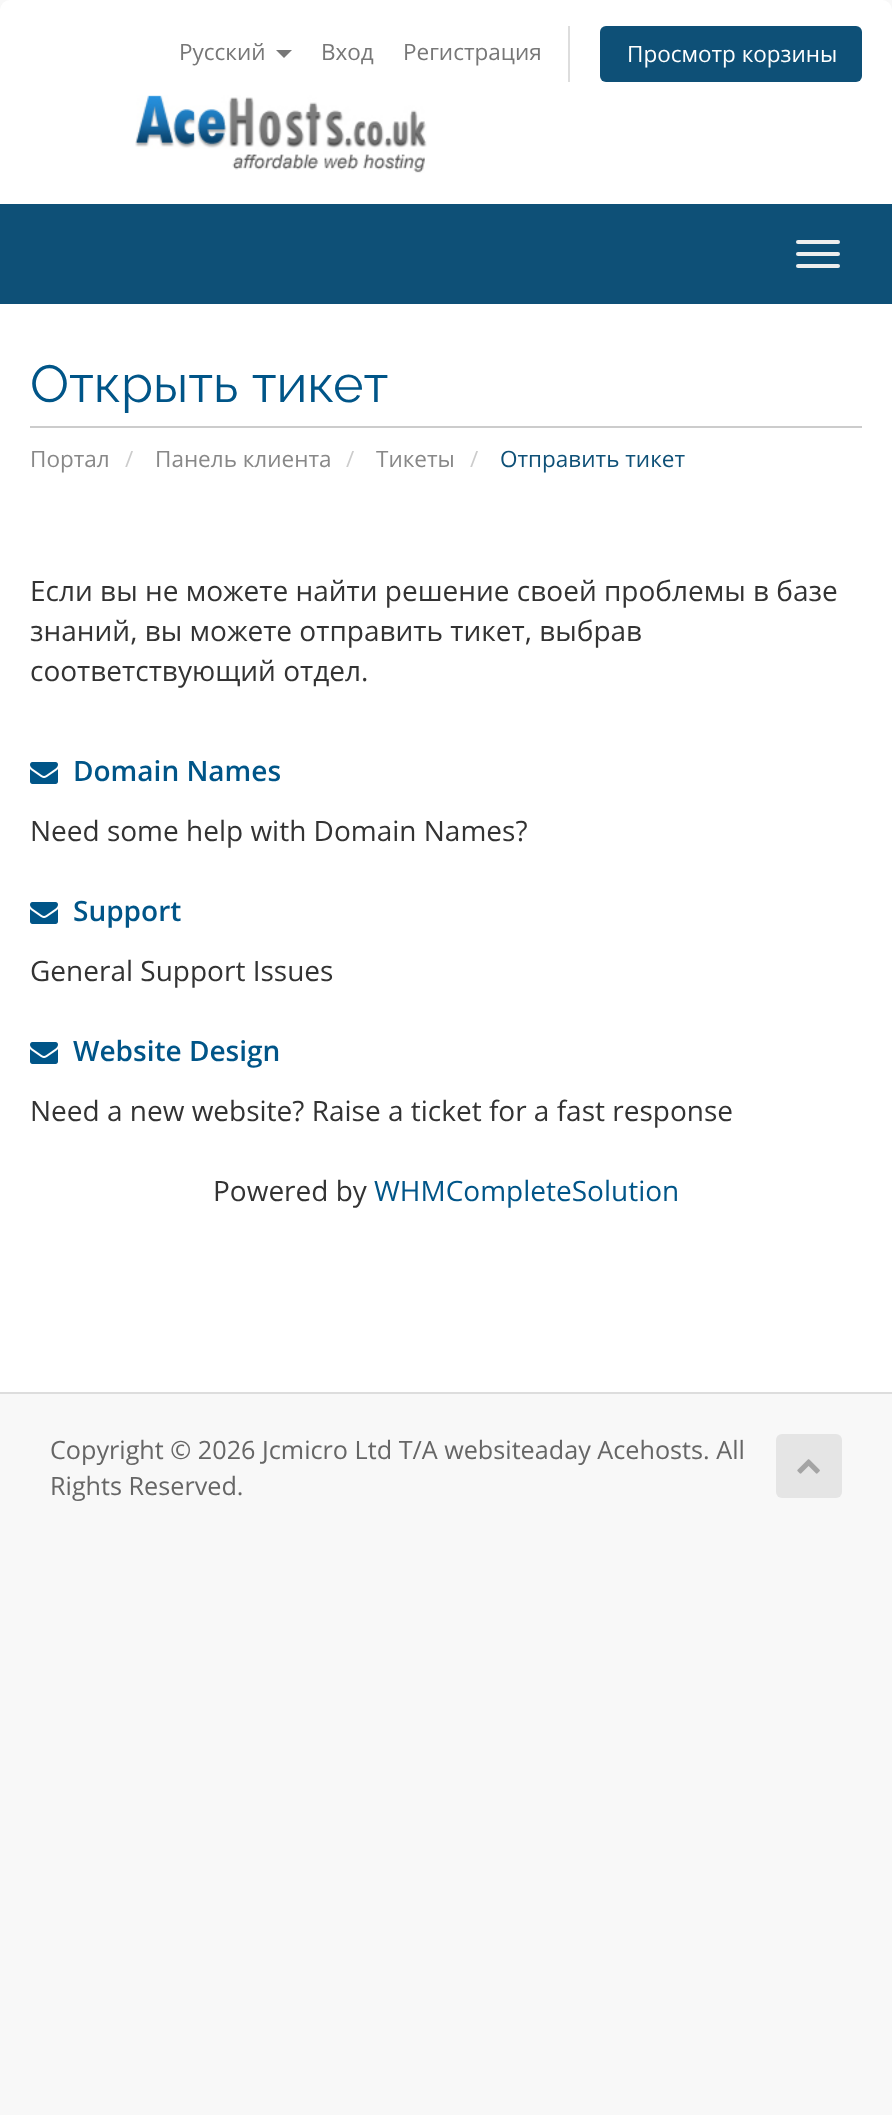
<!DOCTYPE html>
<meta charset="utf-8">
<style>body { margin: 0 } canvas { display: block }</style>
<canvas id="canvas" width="892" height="2115"></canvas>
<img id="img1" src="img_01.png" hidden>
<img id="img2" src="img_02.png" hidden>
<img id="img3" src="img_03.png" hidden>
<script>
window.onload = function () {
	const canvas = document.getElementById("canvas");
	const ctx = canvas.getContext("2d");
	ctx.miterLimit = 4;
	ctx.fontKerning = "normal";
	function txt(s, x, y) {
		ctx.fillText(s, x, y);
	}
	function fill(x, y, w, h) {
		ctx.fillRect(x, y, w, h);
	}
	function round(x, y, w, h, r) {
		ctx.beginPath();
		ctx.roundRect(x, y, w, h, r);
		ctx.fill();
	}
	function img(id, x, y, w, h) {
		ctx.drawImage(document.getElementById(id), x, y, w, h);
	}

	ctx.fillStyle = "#F8F8F8";
	fill(0, 0, 892, 2115);
	ctx.fillStyle = "#FFFFFF";
	ctx.beginPath();
	ctx.roundRect(0, 0, 892, 204, [10, 10, 0, 0]);
	ctx.fill();
	ctx.fillStyle = "#777777";
	ctx.beginPath();
	ctx.moveTo(276, 50);
	ctx.lineTo(292, 50);
	ctx.lineTo(284, 58);
	ctx.closePath();
	ctx.fill();
	ctx.fillStyle = "#DDDDDD";
	fill(568, 26, 2, 56);
	ctx.fillStyle = "#0E5077";
	round(600, 26, 262, 56, 6);
	img("img1", 135, 95, 292, 78);
	fill(0, 204, 892, 100);
	ctx.fillStyle = "#EEEEEE";
	round(796, 240, 44, 4, 2);
	round(796, 252, 44, 4, 2);
	round(796, 264, 44, 4, 2);
	ctx.fillStyle = "#FFFFFF";
	fill(0, 304, 892, 1088);
	ctx.fillStyle = "#CCCCCC";
	fill(30, 426, 832, 2);
	img("img2", 30, 762, 28, 22);
	img("img2", 30, 902, 28, 22);
	img("img2", 30, 1042, 28, 22);
	ctx.fillStyle = "#DDDDDD";
	fill(0, 1392, 892, 2);
	ctx.fillStyle = "#E5E5E5";
	round(776, 1434, 66, 64, 6);
	img("img3", 797, 1459, 23, 15);
	ctx.font = "22.5px Open Sans";
	ctx.fillStyle = "#777777";
	txt("Русский", 179, 60);
	txt("Вход", 321, 60);
	txt("Регистрация", 403, 60);
	ctx.fillStyle = "#FFFFFF";
	txt("Просмотр корзины", 627, 62);
	ctx.font = "52px Raleway";
	ctx.fillStyle = "#005588";
	txt("Открыть тикет", 30, 402);
	ctx.font = "22.5px Open Sans";
	ctx.fillStyle = "#888888";
	txt("Портал", 30, 467);
	ctx.fillStyle = "#CCCCCC";
	txt("/", 125, 467);
	ctx.fillStyle = "#888888";
	txt("Панель клиента", 155, 467);
	ctx.fillStyle = "#CCCCCC";
	txt("/", 346, 467);
	ctx.fillStyle = "#888888";
	txt("Тикеты", 376, 467);
	ctx.fillStyle = "#CCCCCC";
	txt("/", 470, 467);
	ctx.fillStyle = "#0E5077";
	txt("Отправить тикет", 500, 467);
	ctx.font = "28px Open Sans";
	ctx.fillStyle = "#333333";
	txt("Если вы не можете найти решение своей проблемы в базе", 30, 601);
	txt("знаний, вы можете отправить тикет, выбрав", 30, 641);
	txt("соответствующий отдел.", 30, 681);
	ctx.font = "600 28px Open Sans";
	ctx.fillStyle = "#005588";
	txt("Domain Names", 73, 781);
	ctx.font = "28px Open Sans";
	ctx.fillStyle = "#333333";
	txt("Need some help with Domain Names?", 30, 841);
	ctx.font = "600 28px Open Sans";
	ctx.fillStyle = "#005588";
	txt("Support", 73, 921);
	ctx.font = "28px Open Sans";
	ctx.fillStyle = "#333333";
	txt("General Support Issues", 30, 981);
	ctx.font = "600 28px Open Sans";
	ctx.fillStyle = "#005588";
	txt("Website Design", 73, 1061);
	ctx.font = "28px Open Sans";
	ctx.fillStyle = "#333333";
	txt("Need a new website? Raise a ticket for a fast response", 30, 1121);
	txt("Powered by", 213, 1201);
	ctx.fillStyle = "#005588";
	txt("WHMCompleteSolution", 374, 1201);
	ctx.font = "25.2px Open Sans";
	ctx.fillStyle = "#666666";
	txt("Copyright © 2026 Jcmicro Ltd T/A websiteaday Acehosts. All", 50, 1459);
	txt("Rights Reserved.", 50, 1495);
};
</script>
